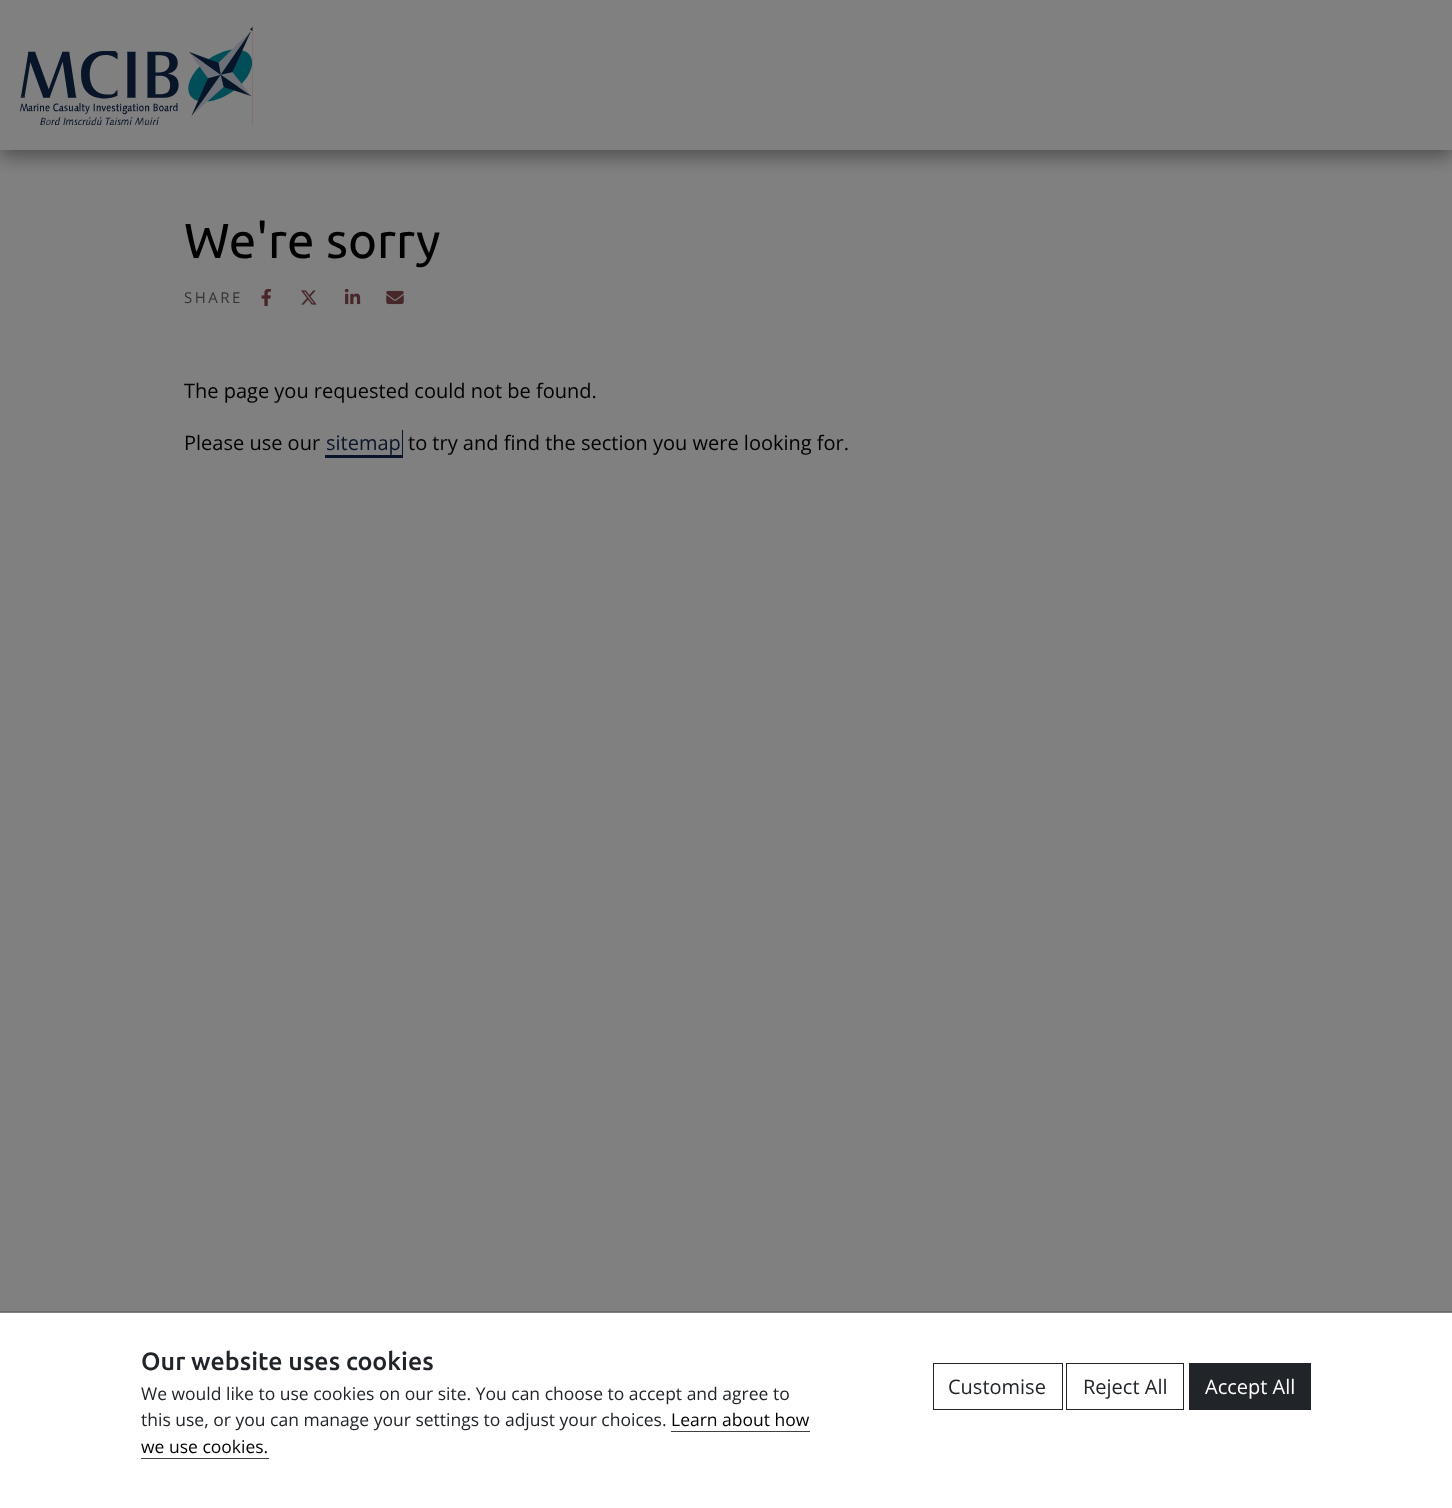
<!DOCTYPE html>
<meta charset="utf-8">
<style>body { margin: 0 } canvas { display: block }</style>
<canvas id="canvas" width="1452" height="1508"></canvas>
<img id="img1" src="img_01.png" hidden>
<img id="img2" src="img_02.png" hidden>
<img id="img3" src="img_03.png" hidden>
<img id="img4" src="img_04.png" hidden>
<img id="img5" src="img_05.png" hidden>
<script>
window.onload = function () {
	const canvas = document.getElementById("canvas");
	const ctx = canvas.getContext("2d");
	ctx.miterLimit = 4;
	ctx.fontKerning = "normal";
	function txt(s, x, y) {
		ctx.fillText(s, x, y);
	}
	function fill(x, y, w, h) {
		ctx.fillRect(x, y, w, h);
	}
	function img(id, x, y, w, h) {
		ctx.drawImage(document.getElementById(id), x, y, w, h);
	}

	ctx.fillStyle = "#808080";
	fill(0, 0, 1452, 1508);
	ctx.save();
	ctx.beginPath();
	ctx.rect(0, 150, 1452, 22);
	ctx.clip();
	ctx.fillStyle = "rgba(0, 0, 0, 0.4)";
	ctx.filter = "blur(9.5px)";
	ctx.beginPath();
	ctx.rect(0, 6, 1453, 150);
	ctx.fill();
	ctx.filter = "none";
	ctx.restore();
	ctx.fillStyle = "#806066";
	fill(252, 25, 1, 100);
	img("img1", 20, 25, 233, 100);
	img("img2", 261, 289, 10, 17);
	img("img3", 301, 290, 16, 15);
	img("img4", 344, 289, 17, 16);
	img("img5", 386, 290, 18, 15);
	ctx.fillStyle = "#081429";
	ctx.beginPath();
	ctx.moveTo(325, 456);
	ctx.lineTo(325, 458);
	ctx.lineTo(403, 458);
	ctx.lineTo(403, 430);
	ctx.lineTo(402, 430);
	ctx.lineTo(402, 456);
	ctx.closePath();
	ctx.fill();
	fill(325, 455, 78, 1);
	ctx.fillStyle = "#FFFFFF";
	fill(0, 1313, 1452, 195);
	ctx.fillStyle = "#696969";
	fill(0, 1311, 1452, 1);
	ctx.fillStyle = "#404040";
	fill(671, 1431, 139, 1);
	fill(141, 1458, 128, 1);
	ctx.strokeStyle = "#212529";
	ctx.strokeRect(933.5, 1363.5, 129, 46);
	ctx.strokeRect(1066.5, 1363.5, 117, 46);
	ctx.fillStyle = "#212529";
	fill(1189, 1363, 122, 47);
	ctx.font = "49.25px Ubuntu";
	ctx.fillStyle = "#000000";
	txt("We're sorry", 184, 258);
	ctx.letterSpacing = "2.5px";
	ctx.font = "15px Open Sans";
	ctx.fillStyle = "#333333";
	txt("SHARE", 184, 303);
	ctx.letterSpacing = "0px";
	ctx.font = "20px Open Sans";
	ctx.fillStyle = "#000000";
	txt("The page you requested could not be found.", 184, 398);
	txt("Please use our", 184, 450);
	ctx.fillStyle = "#081429";
	txt("sitemap", 326, 450);
	ctx.fillStyle = "#000000";
	txt("to try and find the section you were looking for.", 408, 450);
	ctx.font = "500 25px Ubuntu";
	ctx.fillStyle = "#212529";
	txt("Our website uses cookies", 141, 1370);
	ctx.font = "17.5px Open Sans";
	txt("We would like to use cookies on our site. You can choose to accept and agree to", 141, 1400);
	txt("this use, or you can manage your settings to adjust your choices.", 141, 1426);
	ctx.fillStyle = "#000000";
	txt("Learn about how", 671, 1426);
	txt("we use cookies.", 141, 1453);
	ctx.font = "20px Open Sans";
	ctx.fillStyle = "#212529";
	txt("Customise", 948, 1394);
	txt("Reject All", 1083, 1394);
	ctx.fillStyle = "#FFFFFF";
	txt("Accept All", 1205, 1394);
};
</script>
